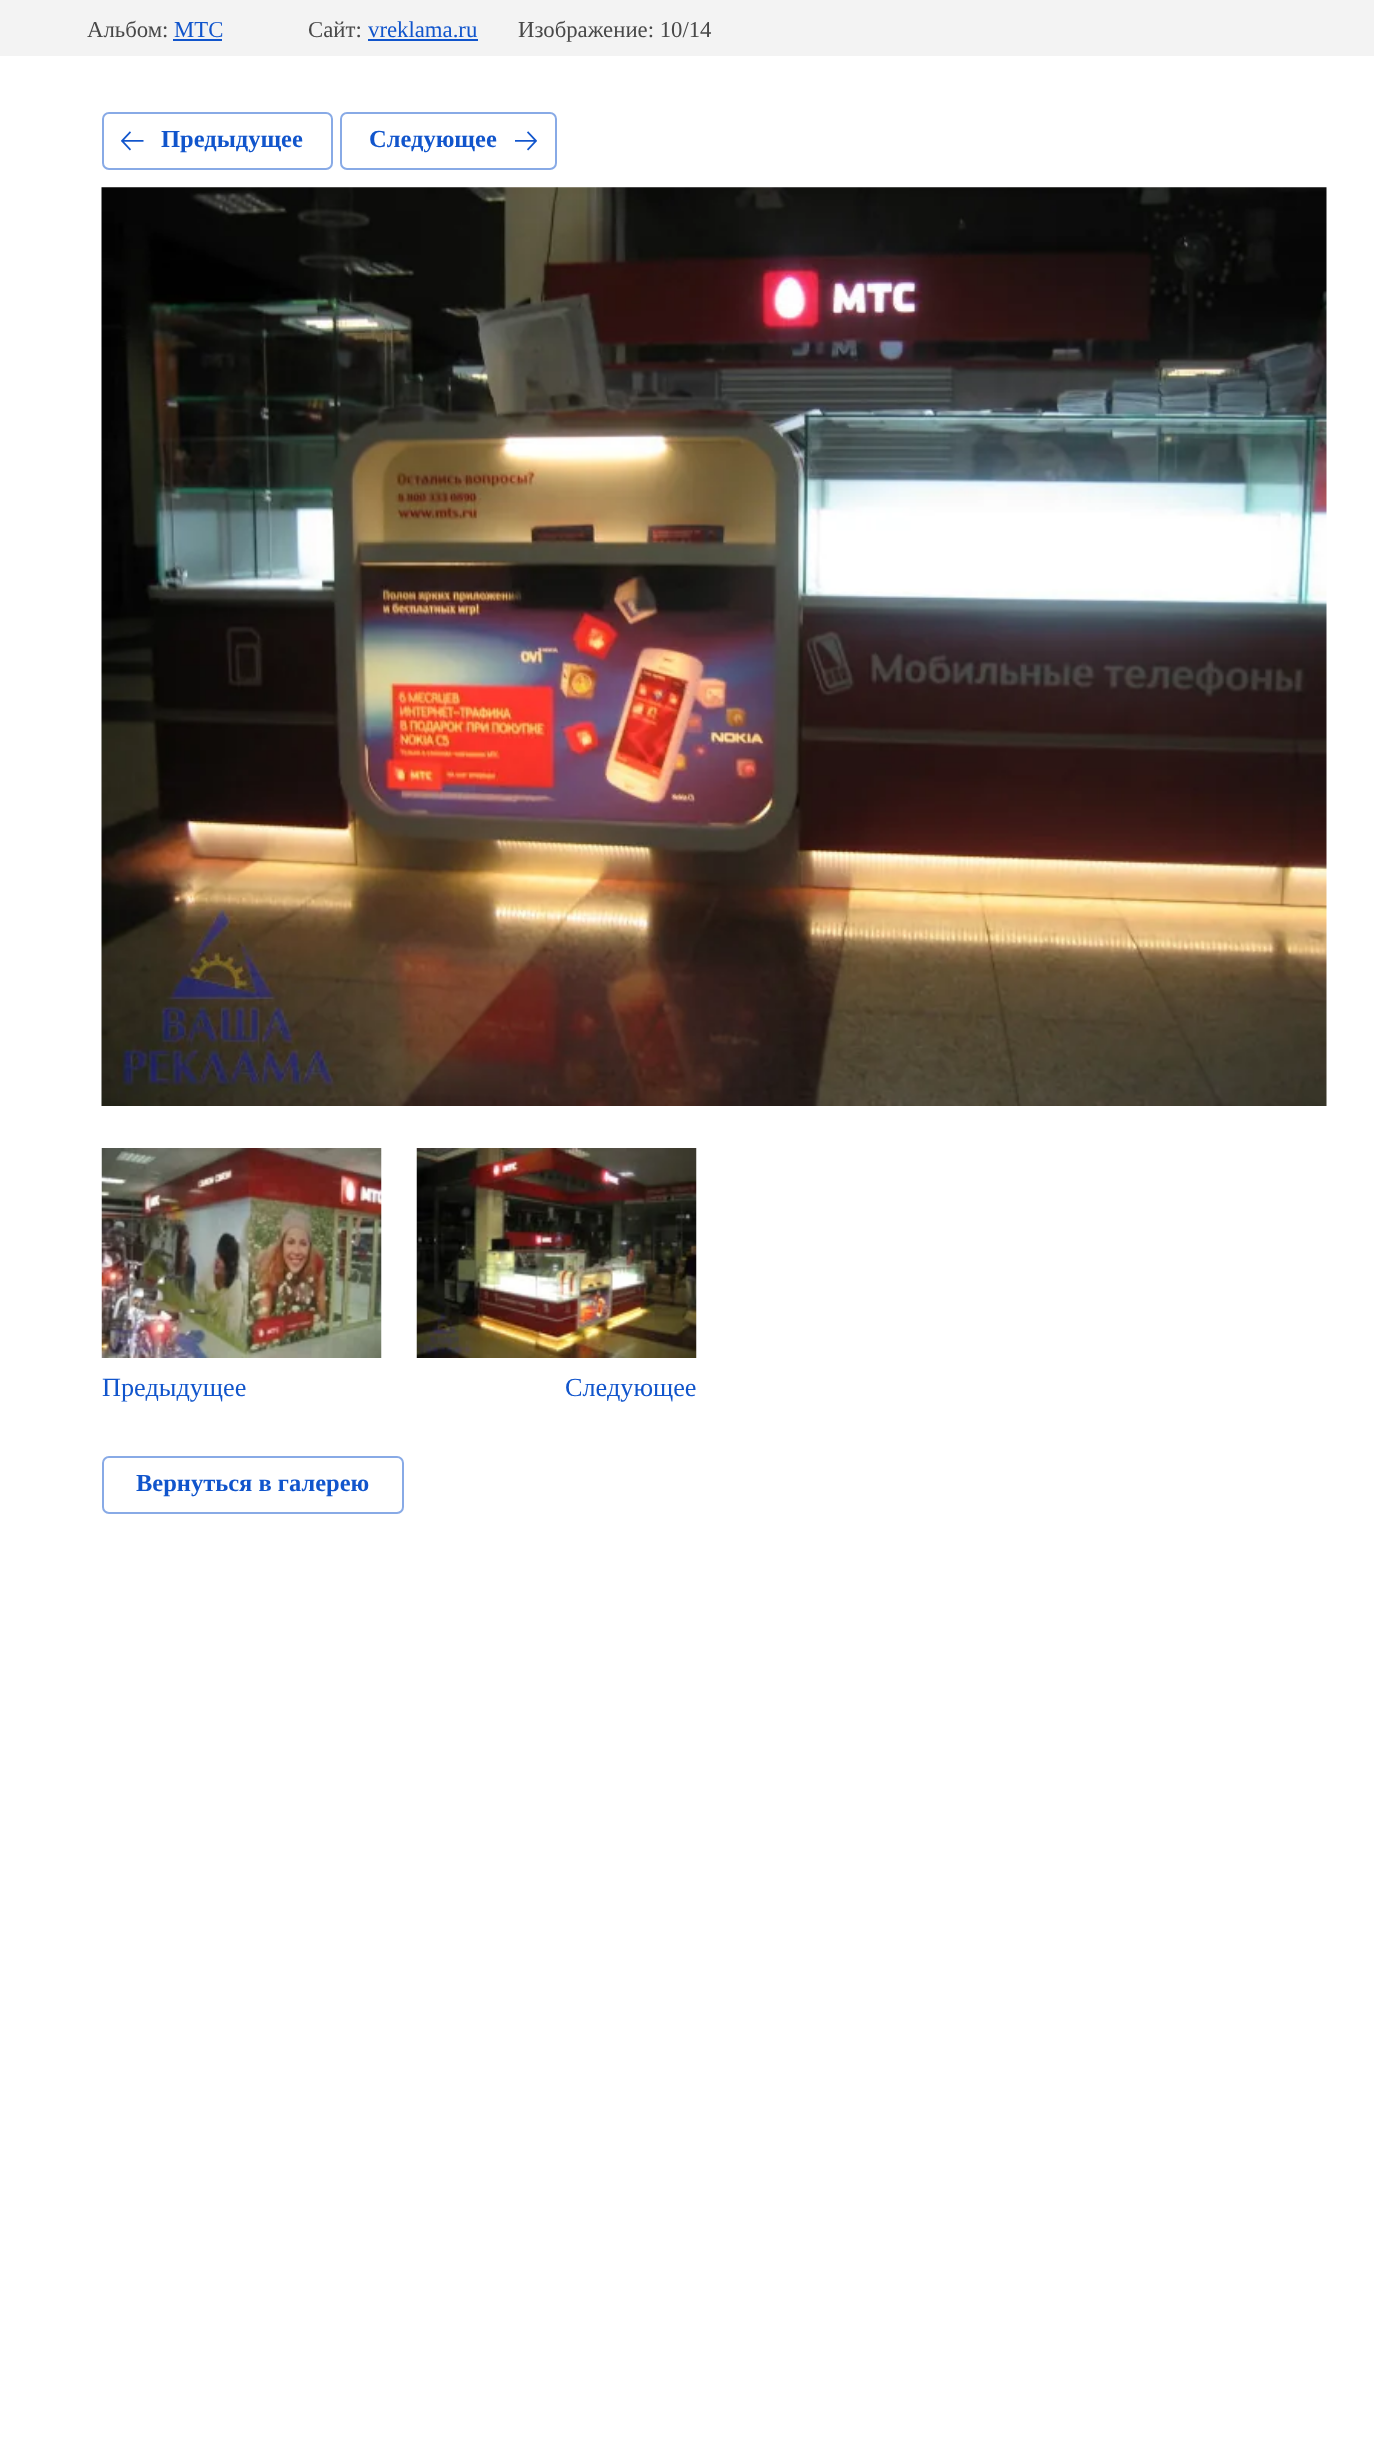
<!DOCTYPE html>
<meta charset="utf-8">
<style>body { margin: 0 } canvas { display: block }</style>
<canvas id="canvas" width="1374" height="2455"></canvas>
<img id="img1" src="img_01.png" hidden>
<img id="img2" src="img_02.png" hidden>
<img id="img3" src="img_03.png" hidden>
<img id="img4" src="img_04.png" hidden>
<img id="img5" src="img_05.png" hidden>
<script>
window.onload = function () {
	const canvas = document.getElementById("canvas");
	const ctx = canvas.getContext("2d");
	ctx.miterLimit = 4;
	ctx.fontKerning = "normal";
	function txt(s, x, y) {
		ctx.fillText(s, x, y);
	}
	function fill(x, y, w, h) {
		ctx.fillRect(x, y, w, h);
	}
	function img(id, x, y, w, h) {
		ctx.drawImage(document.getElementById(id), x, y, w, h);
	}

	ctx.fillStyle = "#FFFFFF";
	fill(0, 0, 1374, 2455);
	ctx.fillStyle = "#F3F3F3";
	fill(0, 0, 1374, 56);
	ctx.fillStyle = "#1155CC";
	fill(173, 39, 49, 2);
	fill(368, 39, 110, 2);
	ctx.beginPath();
	ctx.roundRect(103, 113, 229, 56, 6);
	ctx.strokeStyle = "#88AAE6";
	ctx.lineWidth = 2;
	ctx.stroke();
	img("img1", 121, 131, 23, 20);
	ctx.beginPath();
	ctx.roundRect(341, 113, 215, 56, 6);
	ctx.stroke();
	img("img2", 515, 131, 22, 20);
	img("img3", 101, 187, 1226, 919);
	img("img4", 101, 1148, 281, 210);
	img("img5", 416, 1148, 281, 210);
	ctx.beginPath();
	ctx.roundRect(103, 1457, 300, 56, 6);
	ctx.stroke();
	ctx.font = "22.75px Liberation Serif";
	ctx.fillStyle = "#484848";
	txt("Альбом:", 87, 37);
	ctx.fillStyle = "#1155CC";
	txt("МТС", 174, 37);
	ctx.fillStyle = "#484848";
	txt("Сайт:", 308, 37);
	ctx.fillStyle = "#1155CC";
	txt("vreklama.ru", 368, 37);
	ctx.fillStyle = "#484848";
	txt("Изображение: 10/14", 518, 37);
	ctx.font = "bold 24.5px Liberation Serif";
	ctx.fillStyle = "#1155CC";
	txt("Предыдущее", 161, 147);
	txt("Следующее", 369, 147);
	ctx.font = "26.25px Liberation Serif";
	txt("Предыдущее", 102, 1396);
	txt("Следующее", 565, 1396);
	ctx.font = "bold 24.5px Liberation Serif";
	txt("Вернуться в галерею", 136, 1491);
};
</script>
